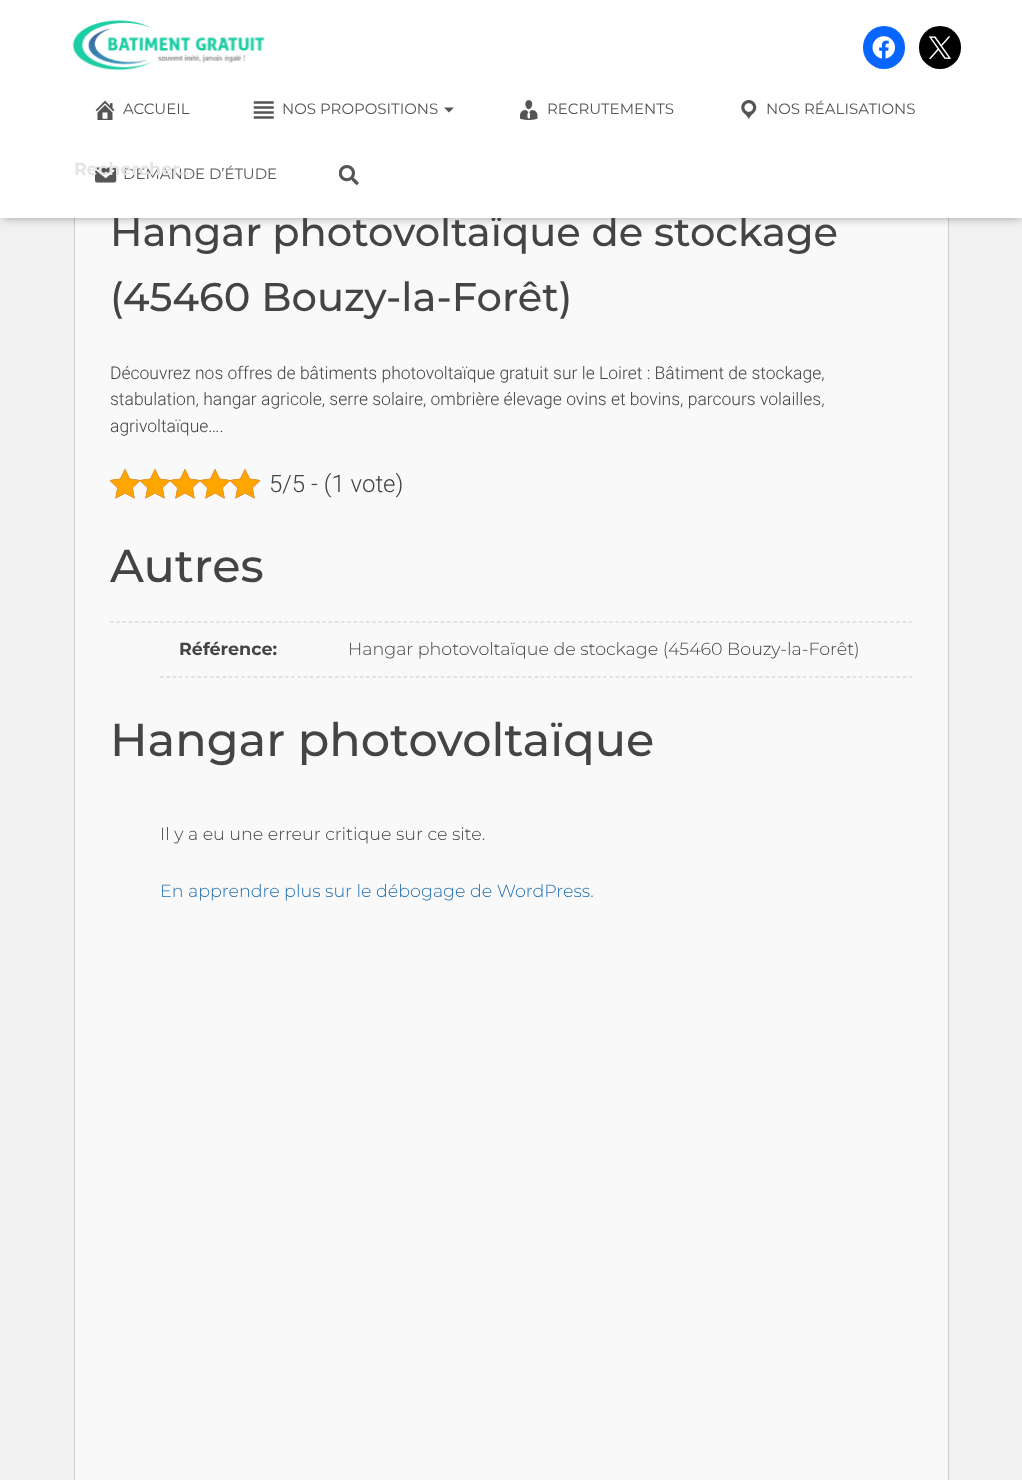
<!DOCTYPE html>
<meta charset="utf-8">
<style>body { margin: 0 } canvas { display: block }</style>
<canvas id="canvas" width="1022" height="1480"></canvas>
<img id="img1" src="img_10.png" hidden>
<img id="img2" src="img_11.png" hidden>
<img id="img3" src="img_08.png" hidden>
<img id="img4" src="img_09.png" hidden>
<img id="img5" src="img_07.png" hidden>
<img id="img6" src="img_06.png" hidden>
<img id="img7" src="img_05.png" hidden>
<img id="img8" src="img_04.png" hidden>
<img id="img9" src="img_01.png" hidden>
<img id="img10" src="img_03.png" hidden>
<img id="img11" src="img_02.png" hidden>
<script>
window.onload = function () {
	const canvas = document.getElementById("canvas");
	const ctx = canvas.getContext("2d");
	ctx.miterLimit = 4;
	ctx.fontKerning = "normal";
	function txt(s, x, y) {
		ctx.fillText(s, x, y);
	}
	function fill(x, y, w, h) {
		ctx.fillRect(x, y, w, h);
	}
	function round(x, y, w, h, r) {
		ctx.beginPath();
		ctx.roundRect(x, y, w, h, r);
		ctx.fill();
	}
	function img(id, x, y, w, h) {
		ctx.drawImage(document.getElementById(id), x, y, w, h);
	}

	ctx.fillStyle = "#F1F1F1";
	fill(0, 0, 1022, 1480);
	ctx.fillStyle = "#F9F9F9";
	fill(75, 218, 873, 1262);
	ctx.strokeStyle = "#CCD0D4";
	ctx.strokeRect(74.5, 60.5, 874, 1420);
	ctx.fillStyle = "rgba(0, 0, 0, 0.1)";
	ctx.filter = "blur(3px)";
	ctx.beginPath();
	ctx.rect(3, 8, 1017, 212);
	ctx.fill();
	ctx.filter = "none";
	ctx.fillStyle = "rgba(0, 0, 0, 0.12)";
	ctx.filter = "blur(6px)";
	ctx.beginPath();
	ctx.rect(0, 1, 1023, 218);
	ctx.fill();
	ctx.filter = "none";
	ctx.fillStyle = "rgba(0, 0, 0, 0.42)";
	ctx.filter = "blur(6px)";
	ctx.beginPath();
	ctx.rect(8, 9, 1007, 202);
	ctx.fill();
	ctx.filter = "none";
	img("img1", 110, 469, 30, 30);
	img("img1", 140, 469, 30, 30);
	img("img1", 170, 469, 30, 30);
	img("img1", 200, 469, 30, 30);
	img("img1", 230, 469, 30, 30);
	img("img2", 110, 469, 30, 30);
	img("img2", 140, 469, 30, 30);
	img("img2", 170, 469, 30, 30);
	img("img2", 200, 469, 30, 30);
	img("img2", 230, 469, 30, 30);
	ctx.beginPath();
	ctx.moveTo(110, 622);
	ctx.lineTo(912.5, 622);
	ctx.strokeStyle = "#CFCBCB";
	ctx.lineWidth = 1.2;
	ctx.setLineDash([3.75, 2.49]);
	ctx.stroke();
	ctx.beginPath();
	ctx.moveTo(160, 677);
	ctx.lineTo(912.5, 677);
	ctx.stroke();
	ctx.font = "500 40px Montserrat";
	ctx.fillStyle = "#444444";
	txt("Hangar photovoltaïque de stockage", 110, 246);
	ctx.fillStyle = "#FFFFFF";
	fill(0, 0, 1022, 218);
	img("img3", 339, 165, 20, 20);
	img("img4", 95, 167, 22, 16);
	ctx.font = "15px Montserrat";
	ctx.fillStyle = "#555555";
	txt("DEMANDE D’ÉTUDE", 123, 179);
	ctx.font = "bold 17.5px Montserrat";
	ctx.fillStyle = "#E5E5E5";
	txt("Rechercher…", 74, 175);
	img("img5", 741, 100, 16, 20);
	ctx.font = "15px Montserrat";
	ctx.fillStyle = "#555555";
	txt("NOS RÉALISATIONS", 766, 114);
	img("img6", 520, 100, 18, 20);
	txt("RECRUTEMENTS", 547, 114);
	img("img7", 253, 101, 21, 18);
	ctx.beginPath();
	ctx.moveTo(444, 107.5);
	ctx.lineTo(454, 107.5);
	ctx.lineTo(449, 112.5);
	ctx.closePath();
	ctx.fill();
	txt("NOS PROPOSITIONS", 282, 114);
	img("img8", 95, 100, 20, 20);
	txt("ACCUEIL", 123, 114);
	img("img9", 72, 20, 194, 51);
	ctx.fillStyle = "#000000";
	round(919, 26, 42, 43, 21);
	img("img10", 928, 36, 24, 23);
	ctx.fillStyle = "#0866FF";
	round(863, 26, 42, 43, 21);
	img("img11", 872, 36, 23, 23);
	ctx.font = "500 40px Montserrat";
	ctx.fillStyle = "#444444";
	txt("(45460 Bouzy-la-Forêt)", 110, 311);
	ctx.font = "300 17.5px Roboto";
	txt("Découvrez nos offres de bâtiments photovoltaïque gratuit sur le Loiret : Bâtiment de stockage,", 110, 379);
	txt("stabulation, hangar agricole, serre solaire, ombrière élevage ovins et bovins, parcours volailles,", 110, 405);
	txt("agrivoltaïque….", 110, 432);
	ctx.font = "300 24px Roboto";
	txt("5/5 - (1 vote)", 269, 492);
	ctx.font = "500 46.25px Montserrat";
	txt("Autres", 110, 582);
	ctx.font = "bold 17.5px Montserrat";
	txt("Référence:", 179, 655);
	ctx.font = "300 17.5px Montserrat";
	txt("Hangar photovoltaïque de stockage (45460 Bouzy-la-Forêt)", 348, 655);
	ctx.font = "500 46.25px Montserrat";
	txt("Hangar photovoltaïque", 110, 756);
	ctx.font = "300 17.5px Montserrat";
	txt("Il y a eu une erreur critique sur ce site.", 160, 840);
	ctx.fillStyle = "#2271B1";
	txt("En apprendre plus sur le débogage de WordPress.", 160, 897);
};
</script>
